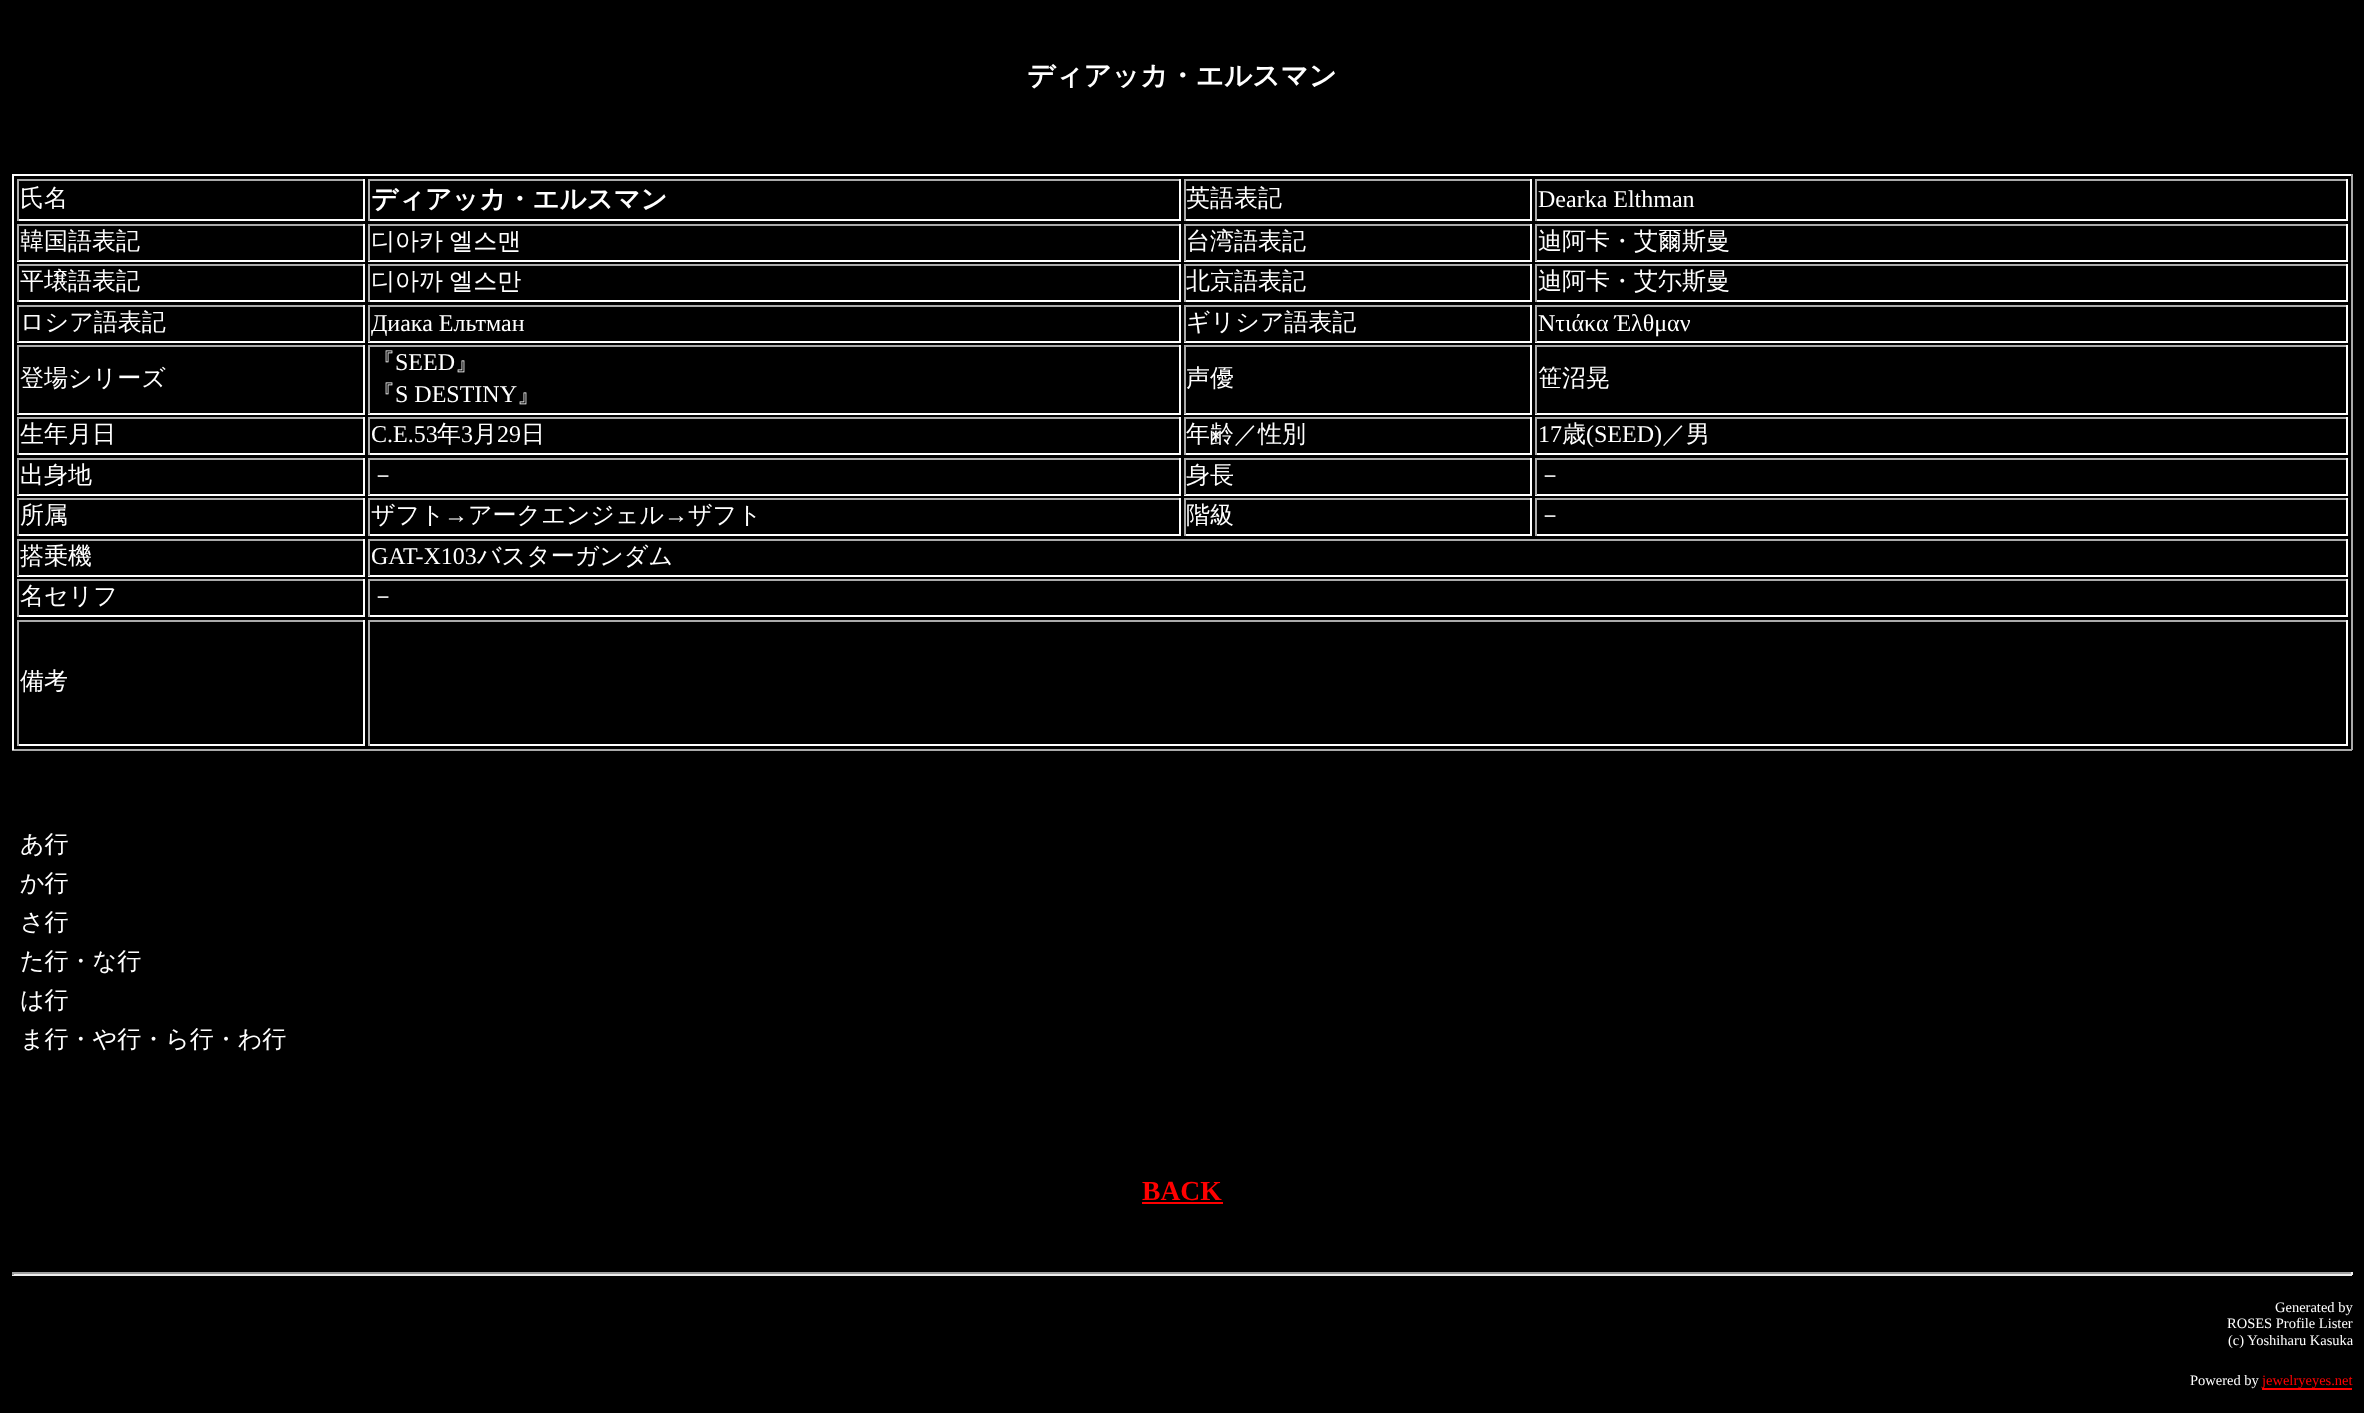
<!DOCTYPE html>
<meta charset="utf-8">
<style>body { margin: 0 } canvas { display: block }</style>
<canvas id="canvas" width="2364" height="1413"></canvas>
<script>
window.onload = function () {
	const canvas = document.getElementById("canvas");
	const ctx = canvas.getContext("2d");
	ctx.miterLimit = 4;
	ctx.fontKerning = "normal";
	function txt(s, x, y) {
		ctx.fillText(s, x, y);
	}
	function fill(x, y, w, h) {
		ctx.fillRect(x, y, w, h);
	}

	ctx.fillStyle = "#000000";
	fill(0, 0, 2364, 1413);
	ctx.fillStyle = "#FFFFFF";
	fill(12, 174, 2340, 2);
	ctx.fillStyle = "#AAAAAA";
	fill(2351, 174, 2, 576);
	fill(12, 749, 2340, 2);
	ctx.fillStyle = "#FFFFFF";
	fill(12, 174, 2, 576);
	ctx.fillStyle = "#AAAAAA";
	fill(17, 179, 348, 2);
	ctx.fillStyle = "#FFFFFF";
	fill(363, 179, 2, 42);
	fill(17, 219, 348, 2);
	ctx.fillStyle = "#AAAAAA";
	fill(17, 179, 2, 42);
	fill(368, 179, 813, 2);
	ctx.fillStyle = "#FFFFFF";
	fill(1179, 179, 2, 42);
	fill(368, 219, 813, 2);
	ctx.fillStyle = "#AAAAAA";
	fill(368, 179, 2, 42);
	fill(1184, 179, 348, 2);
	ctx.fillStyle = "#FFFFFF";
	fill(1530, 179, 2, 42);
	fill(1184, 219, 348, 2);
	ctx.fillStyle = "#AAAAAA";
	fill(1184, 179, 2, 42);
	fill(1535, 179, 813, 2);
	ctx.fillStyle = "#FFFFFF";
	fill(2346, 179, 2, 42);
	fill(1535, 219, 813, 2);
	ctx.fillStyle = "#AAAAAA";
	fill(1535, 179, 2, 42);
	fill(17, 224, 348, 2);
	ctx.fillStyle = "#FFFFFF";
	fill(363, 224, 2, 37);
	fill(17, 260, 348, 2);
	ctx.fillStyle = "#AAAAAA";
	fill(17, 224, 2, 37);
	fill(368, 224, 813, 2);
	ctx.fillStyle = "#FFFFFF";
	fill(1179, 224, 2, 37);
	fill(368, 260, 813, 2);
	ctx.fillStyle = "#AAAAAA";
	fill(368, 224, 2, 37);
	fill(1184, 224, 348, 2);
	ctx.fillStyle = "#FFFFFF";
	fill(1530, 224, 2, 37);
	fill(1184, 260, 348, 2);
	ctx.fillStyle = "#AAAAAA";
	fill(1184, 224, 2, 37);
	fill(1535, 224, 813, 2);
	ctx.fillStyle = "#FFFFFF";
	fill(2346, 224, 2, 37);
	fill(1535, 260, 813, 2);
	ctx.fillStyle = "#AAAAAA";
	fill(1535, 224, 2, 37);
	fill(17, 264, 348, 2);
	ctx.fillStyle = "#FFFFFF";
	fill(363, 264, 2, 38);
	fill(17, 300, 348, 2);
	ctx.fillStyle = "#AAAAAA";
	fill(17, 264, 2, 38);
	fill(368, 264, 813, 2);
	ctx.fillStyle = "#FFFFFF";
	fill(1179, 264, 2, 38);
	fill(368, 300, 813, 2);
	ctx.fillStyle = "#AAAAAA";
	fill(368, 264, 2, 38);
	fill(1184, 264, 348, 2);
	ctx.fillStyle = "#FFFFFF";
	fill(1530, 264, 2, 38);
	fill(1184, 300, 348, 2);
	ctx.fillStyle = "#AAAAAA";
	fill(1184, 264, 2, 38);
	fill(1535, 264, 813, 2);
	ctx.fillStyle = "#FFFFFF";
	fill(2346, 264, 2, 38);
	fill(1535, 300, 813, 2);
	ctx.fillStyle = "#AAAAAA";
	fill(1535, 264, 2, 38);
	fill(17, 305, 348, 2);
	ctx.fillStyle = "#FFFFFF";
	fill(363, 305, 2, 37);
	fill(17, 341, 348, 2);
	ctx.fillStyle = "#AAAAAA";
	fill(17, 305, 2, 37);
	fill(368, 305, 813, 2);
	ctx.fillStyle = "#FFFFFF";
	fill(1179, 305, 2, 37);
	fill(368, 341, 813, 2);
	ctx.fillStyle = "#AAAAAA";
	fill(368, 305, 2, 37);
	fill(1184, 305, 348, 2);
	ctx.fillStyle = "#FFFFFF";
	fill(1530, 305, 2, 37);
	fill(1184, 341, 348, 2);
	ctx.fillStyle = "#AAAAAA";
	fill(1184, 305, 2, 37);
	fill(1535, 305, 813, 2);
	ctx.fillStyle = "#FFFFFF";
	fill(2346, 305, 2, 37);
	fill(1535, 341, 813, 2);
	ctx.fillStyle = "#AAAAAA";
	fill(1535, 305, 2, 37);
	fill(17, 345, 348, 2);
	ctx.fillStyle = "#FFFFFF";
	fill(363, 345, 2, 69);
	fill(17, 413, 348, 2);
	ctx.fillStyle = "#AAAAAA";
	fill(17, 345, 2, 69);
	fill(368, 345, 813, 2);
	ctx.fillStyle = "#FFFFFF";
	fill(1179, 345, 2, 69);
	fill(368, 413, 813, 2);
	ctx.fillStyle = "#AAAAAA";
	fill(368, 345, 2, 69);
	fill(1184, 345, 348, 2);
	ctx.fillStyle = "#FFFFFF";
	fill(1530, 345, 2, 69);
	fill(1184, 413, 348, 2);
	ctx.fillStyle = "#AAAAAA";
	fill(1184, 345, 2, 69);
	fill(1535, 345, 813, 2);
	ctx.fillStyle = "#FFFFFF";
	fill(2346, 345, 2, 69);
	fill(1535, 413, 813, 2);
	ctx.fillStyle = "#AAAAAA";
	fill(1535, 345, 2, 69);
	fill(17, 417, 348, 2);
	ctx.fillStyle = "#FFFFFF";
	fill(363, 417, 2, 38);
	fill(17, 453, 348, 2);
	ctx.fillStyle = "#AAAAAA";
	fill(17, 417, 2, 38);
	fill(368, 417, 813, 2);
	ctx.fillStyle = "#FFFFFF";
	fill(1179, 417, 2, 38);
	fill(368, 453, 813, 2);
	ctx.fillStyle = "#AAAAAA";
	fill(368, 417, 2, 38);
	fill(1184, 417, 348, 2);
	ctx.fillStyle = "#FFFFFF";
	fill(1530, 417, 2, 38);
	fill(1184, 453, 348, 2);
	ctx.fillStyle = "#AAAAAA";
	fill(1184, 417, 2, 38);
	fill(1535, 417, 813, 2);
	ctx.fillStyle = "#FFFFFF";
	fill(2346, 417, 2, 38);
	fill(1535, 453, 813, 2);
	ctx.fillStyle = "#AAAAAA";
	fill(1535, 417, 2, 38);
	fill(17, 458, 348, 2);
	ctx.fillStyle = "#FFFFFF";
	fill(363, 458, 2, 37);
	fill(17, 494, 348, 2);
	ctx.fillStyle = "#AAAAAA";
	fill(17, 458, 2, 37);
	fill(368, 458, 813, 2);
	ctx.fillStyle = "#FFFFFF";
	fill(1179, 458, 2, 37);
	fill(368, 494, 813, 2);
	ctx.fillStyle = "#AAAAAA";
	fill(368, 458, 2, 37);
	fill(1184, 458, 348, 2);
	ctx.fillStyle = "#FFFFFF";
	fill(1530, 458, 2, 37);
	fill(1184, 494, 348, 2);
	ctx.fillStyle = "#AAAAAA";
	fill(1184, 458, 2, 37);
	fill(1535, 458, 813, 2);
	ctx.fillStyle = "#FFFFFF";
	fill(2346, 458, 2, 37);
	fill(1535, 494, 813, 2);
	ctx.fillStyle = "#AAAAAA";
	fill(1535, 458, 2, 37);
	fill(17, 498, 348, 2);
	ctx.fillStyle = "#FFFFFF";
	fill(363, 498, 2, 38);
	fill(17, 534, 348, 2);
	ctx.fillStyle = "#AAAAAA";
	fill(17, 498, 2, 38);
	fill(368, 498, 813, 2);
	ctx.fillStyle = "#FFFFFF";
	fill(1179, 498, 2, 38);
	fill(368, 534, 813, 2);
	ctx.fillStyle = "#AAAAAA";
	fill(368, 498, 2, 38);
	fill(1184, 498, 348, 2);
	ctx.fillStyle = "#FFFFFF";
	fill(1530, 498, 2, 38);
	fill(1184, 534, 348, 2);
	ctx.fillStyle = "#AAAAAA";
	fill(1184, 498, 2, 38);
	fill(1535, 498, 813, 2);
	ctx.fillStyle = "#FFFFFF";
	fill(2346, 498, 2, 38);
	fill(1535, 534, 813, 2);
	ctx.fillStyle = "#AAAAAA";
	fill(1535, 498, 2, 38);
	fill(17, 539, 348, 2);
	ctx.fillStyle = "#FFFFFF";
	fill(363, 539, 2, 37);
	fill(17, 575, 348, 2);
	ctx.fillStyle = "#AAAAAA";
	fill(17, 539, 2, 37);
	fill(368, 539, 1980, 2);
	ctx.fillStyle = "#FFFFFF";
	fill(2346, 539, 2, 37);
	fill(368, 575, 1980, 2);
	ctx.fillStyle = "#AAAAAA";
	fill(368, 539, 2, 37);
	fill(17, 579, 348, 2);
	ctx.fillStyle = "#FFFFFF";
	fill(363, 579, 2, 38);
	fill(17, 615, 348, 2);
	ctx.fillStyle = "#AAAAAA";
	fill(17, 579, 2, 38);
	fill(368, 579, 1980, 2);
	ctx.fillStyle = "#FFFFFF";
	fill(2346, 579, 2, 38);
	fill(368, 615, 1980, 2);
	ctx.fillStyle = "#AAAAAA";
	fill(368, 579, 2, 38);
	fill(17, 620, 348, 2);
	ctx.fillStyle = "#FFFFFF";
	fill(363, 620, 2, 126);
	fill(17, 744, 348, 2);
	ctx.fillStyle = "#AAAAAA";
	fill(17, 620, 2, 126);
	fill(368, 620, 1980, 2);
	ctx.fillStyle = "#FFFFFF";
	fill(2346, 620, 2, 126);
	fill(368, 744, 1980, 2);
	ctx.fillStyle = "#AAAAAA";
	fill(368, 620, 2, 126);
	ctx.fillStyle = "#FF0000";
	fill(1142, 1202, 81, 2);
	ctx.fillStyle = "#9F9F9F";
	fill(12, 1272, 2340, 2);
	ctx.fillStyle = "#EEEEEE";
	fill(2351, 1272, 2, 3);
	fill(12, 1274, 2340, 2);
	ctx.fillStyle = "#9F9F9F";
	fill(12, 1272, 2, 3);
	ctx.fillStyle = "#FF0000";
	fill(2262, 1388, 90, 2);
	ctx.font = "bold 27.6px WenQuanYi Zen Hei";
	ctx.fillStyle = "#FFFFFF";
	txt("ディアッカ・エルスマン", 1027, 85);
	ctx.font = "500 24px WenQuanYi Zen Hei";
	txt("氏名", 20, 206);
	ctx.font = "bold 26.4px WenQuanYi Zen Hei";
	txt("ディアッカ・エルスマン", 371, 208);
	ctx.font = "500 24px WenQuanYi Zen Hei";
	txt("英語表記", 1186, 206);
	ctx.font = "24px Liberation Serif";
	txt("Dearka Elthman", 1538, 207);
	ctx.font = "500 24px WenQuanYi Zen Hei";
	txt("韓国語表記", 20, 249);
	ctx.wordSpacing = "-1px";
	txt("디아카 엘스맨", 371, 249);
	ctx.wordSpacing = "0px";
	txt("台湾語表記", 1186, 249);
	txt("迪阿卡・艾爾斯曼", 1538, 249);
	txt("平壌語表記", 20, 289);
	ctx.wordSpacing = "-1px";
	txt("디아까 엘스만", 371, 289);
	ctx.wordSpacing = "0px";
	txt("北京語表記", 1186, 289);
	txt("迪阿卡・艾尓斯曼", 1538, 289);
	txt("ロシア語表記", 20, 330);
	ctx.font = "24px Liberation Serif";
	txt("Диака Ельтман", 371, 331);
	ctx.font = "500 24px WenQuanYi Zen Hei";
	txt("ギリシア語表記", 1186, 330);
	ctx.font = "24px Liberation Serif";
	txt("Ντιάκα Έλθμαν", 1538, 331);
	ctx.font = "500 24px WenQuanYi Zen Hei";
	txt("登場シリーズ", 20, 386);
	txt("『", 371, 370);
	ctx.font = "24px Liberation Serif";
	txt("SEED", 395, 370);
	ctx.font = "500 24px WenQuanYi Zen Hei";
	txt("』", 455, 370);
	txt("『", 371, 402);
	ctx.font = "24px Liberation Serif";
	txt("S DESTINY", 395, 402);
	ctx.font = "500 24px WenQuanYi Zen Hei";
	txt("』", 517, 402);
	txt("声優", 1186, 386);
	txt("笹沼晃", 1538, 386);
	txt("生年月日", 20, 442);
	ctx.font = "24px Liberation Serif";
	txt("C.E.53", 371, 442);
	ctx.font = "500 24px WenQuanYi Zen Hei";
	txt("年", 437, 442);
	ctx.font = "24px Liberation Serif";
	txt("3", 461, 442);
	ctx.font = "500 24px WenQuanYi Zen Hei";
	txt("月", 473, 442);
	ctx.font = "24px Liberation Serif";
	txt("29", 497, 442);
	ctx.font = "500 24px WenQuanYi Zen Hei";
	txt("日", 521, 442);
	txt("年齢／性別", 1186, 442);
	ctx.font = "24px Liberation Serif";
	txt("17", 1538, 442);
	ctx.font = "500 24px WenQuanYi Zen Hei";
	txt("歳", 1562, 442);
	ctx.font = "24px Liberation Serif";
	txt("(SEED)", 1586, 442);
	ctx.font = "500 24px WenQuanYi Zen Hei";
	txt("／男", 1662, 442);
	txt("出身地", 20, 483);
	txt("－", 371, 483);
	txt("身長", 1186, 483);
	txt("－", 1538, 483);
	txt("所属", 20, 523);
	txt("ザフト", 371, 523);
	ctx.font = "24px Liberation Serif";
	txt("→", 444, 523);
	ctx.font = "500 24px WenQuanYi Zen Hei";
	txt("アークエンジェル", 468, 523);
	ctx.font = "24px Liberation Serif";
	txt("→", 664, 523);
	ctx.font = "500 24px WenQuanYi Zen Hei";
	txt("ザフト", 688, 523);
	txt("階級", 1186, 523);
	txt("－", 1538, 523);
	txt("搭乗機", 20, 564);
	ctx.font = "24px Liberation Serif";
	txt("GAT-X103", 371, 564);
	ctx.font = "500 24px WenQuanYi Zen Hei";
	txt("バスターガンダム", 477, 564);
	txt("名セリフ", 20, 604);
	txt("－", 371, 604);
	txt("備考", 20, 689);
	txt("あ行", 20, 852);
	txt("か行", 20, 891);
	txt("さ行", 20, 930);
	txt("た行・な行", 20, 969);
	txt("は行", 20, 1008);
	txt("ま行・や行・ら行・わ行", 20, 1047);
	ctx.font = "bold 27.6px Liberation Serif";
	ctx.fillStyle = "#FF0000";
	txt("BACK", 1142, 1200);
	ctx.font = "14.5px Liberation Serif";
	ctx.fillStyle = "#FFFFFF";
	txt("Generated by", 2275, 1312);
	txt("ROSES Profile Lister", 2227, 1328);
	txt("(c) Yoshiharu Kasuka", 2228, 1345);
	txt("Powered by", 2190, 1385);
	ctx.fillStyle = "#FF0000";
	txt("jewelryeyes.net", 2262, 1385);
};
</script>
